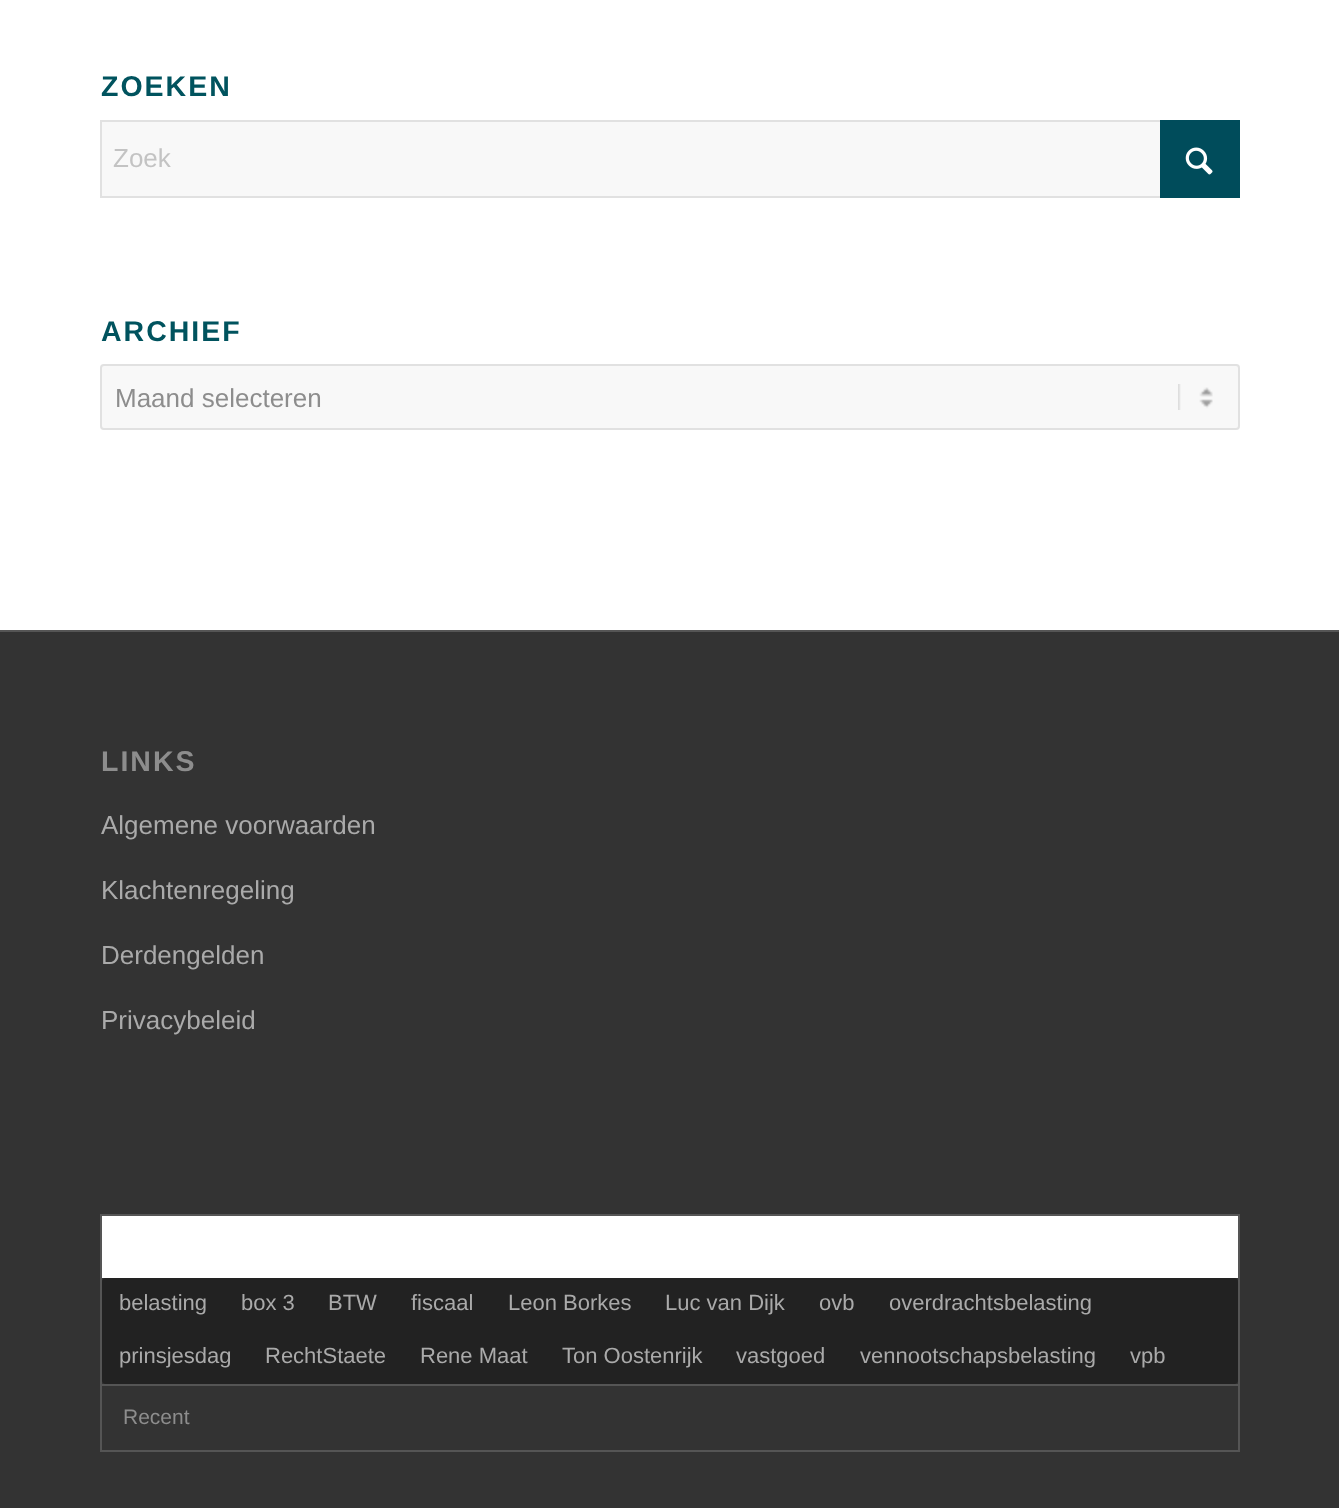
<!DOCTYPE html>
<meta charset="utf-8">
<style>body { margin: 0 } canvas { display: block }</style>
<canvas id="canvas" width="1339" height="1508"></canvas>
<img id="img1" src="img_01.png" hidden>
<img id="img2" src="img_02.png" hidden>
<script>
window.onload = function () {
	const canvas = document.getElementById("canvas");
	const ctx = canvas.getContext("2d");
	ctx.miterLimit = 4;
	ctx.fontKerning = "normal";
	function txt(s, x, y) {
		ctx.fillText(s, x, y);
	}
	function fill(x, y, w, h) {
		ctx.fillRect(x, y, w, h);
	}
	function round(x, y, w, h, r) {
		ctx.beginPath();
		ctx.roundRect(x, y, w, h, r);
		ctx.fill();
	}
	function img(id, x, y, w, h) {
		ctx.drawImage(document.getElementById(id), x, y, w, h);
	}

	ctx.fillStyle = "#FFFFFF";
	fill(0, 0, 1339, 1508);
	ctx.fillStyle = "#F8F8F8";
	fill(102, 122, 1058, 74);
	ctx.strokeStyle = "#E1E1E1";
	ctx.lineWidth = 2;
	ctx.strokeRect(101, 121, 1138, 76);
	ctx.fillStyle = "#004C5B";
	fill(1160, 120, 80, 78);
	img("img1", 1185, 147, 28, 28);
	ctx.fillStyle = "#F8F8F8";
	round(100, 364, 1140, 66, 4);
	img("img2", 1178, 384, 35, 26);
	ctx.beginPath();
	ctx.roundRect(101, 365, 1138, 64, 3);
	ctx.stroke();
	ctx.fillStyle = "#333333";
	fill(0, 632, 1339, 876);
	ctx.fillStyle = "#555555";
	fill(0, 630, 1339, 2);
	fill(1238, 1214, 2, 238);
	fill(100, 1450, 1140, 2);
	fill(100, 1214, 2, 238);
	ctx.fillStyle = "#FFFFFF";
	fill(102, 1216, 1136, 62);
	ctx.fillStyle = "#555555";
	fill(102, 1214, 1136, 2);
	ctx.fillStyle = "#222222";
	round(102, 1278, 1136, 106, 4);
	ctx.fillStyle = "#555555";
	fill(102, 1384, 1136, 2);
	ctx.letterSpacing = "2px";
	ctx.font = "bold 28.5px Liberation Sans";
	ctx.fillStyle = "#00535E";
	txt("ZOEKEN", 101, 96);
	ctx.letterSpacing = "0px";
	ctx.font = "26px Liberation Sans";
	ctx.fillStyle = "#C3C3C3";
	txt("Zoek", 113, 167);
	ctx.letterSpacing = "2px";
	ctx.font = "bold 28.5px Liberation Sans";
	ctx.fillStyle = "#00535E";
	txt("ARCHIEF", 101, 341);
	ctx.letterSpacing = "0px";
	ctx.font = "26px Liberation Sans";
	ctx.fillStyle = "#8D8D8D";
	txt("Maand selecteren", 115, 407);
	ctx.letterSpacing = "2px";
	ctx.font = "bold 28.5px Liberation Sans";
	txt("LINKS", 101, 771);
	ctx.letterSpacing = "0px";
	ctx.font = "26px Liberation Sans";
	ctx.fillStyle = "#AAAAAA";
	txt("Algemene voorwaarden", 101, 834);
	txt("Klachtenregeling", 101, 899);
	txt("Derdengelden", 101, 964);
	txt("Privacybeleid", 101, 1029);
	ctx.font = "22px Liberation Sans";
	txt("belasting", 119, 1310);
	txt("box 3", 241, 1310);
	txt("BTW", 328, 1310);
	txt("fiscaal", 411, 1310);
	txt("Leon Borkes", 508, 1310);
	txt("Luc van Dijk", 665, 1310);
	txt("ovb", 819, 1310);
	txt("overdrachtsbelasting", 889, 1310);
	txt("prinsjesdag", 119, 1363);
	txt("RechtStaete", 265, 1363);
	txt("Rene Maat", 420, 1363);
	txt("Ton Oostenrijk", 562, 1363);
	txt("vastgoed", 736, 1363);
	txt("vennootschapsbelasting", 860, 1363);
	txt("vpb", 1130, 1363);
	ctx.font = "21px Liberation Sans";
	ctx.fillStyle = "#8D8D8D";
	txt("Recent", 123, 1424);
};
</script>
